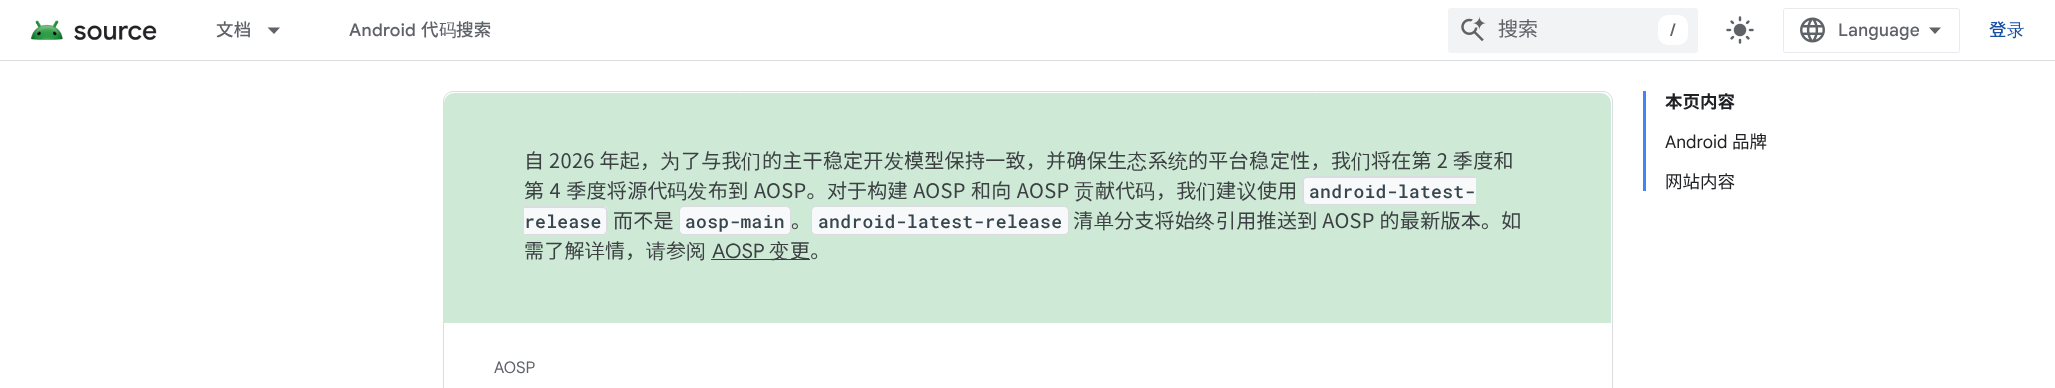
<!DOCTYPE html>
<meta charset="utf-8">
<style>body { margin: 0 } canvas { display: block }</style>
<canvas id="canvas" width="2055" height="388"></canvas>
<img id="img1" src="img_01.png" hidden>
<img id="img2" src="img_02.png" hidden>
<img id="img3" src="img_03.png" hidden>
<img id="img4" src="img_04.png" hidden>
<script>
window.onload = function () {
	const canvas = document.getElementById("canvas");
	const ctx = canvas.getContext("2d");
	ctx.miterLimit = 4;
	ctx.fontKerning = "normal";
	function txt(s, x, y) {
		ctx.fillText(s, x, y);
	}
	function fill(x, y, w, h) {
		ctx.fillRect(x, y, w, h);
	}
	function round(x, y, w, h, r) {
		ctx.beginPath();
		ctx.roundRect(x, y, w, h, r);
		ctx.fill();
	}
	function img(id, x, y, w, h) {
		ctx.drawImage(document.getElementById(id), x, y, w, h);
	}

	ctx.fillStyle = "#FFFFFF";
	fill(0, 0, 2055, 388);
	ctx.fillStyle = "#DADCE0";
	fill(0, 60, 2055, 1);
	img("img1", 30, 20, 127, 20);
	ctx.fillStyle = "#5F6368";
	ctx.beginPath();
	ctx.moveTo(267.5, 27.5);
	ctx.lineTo(280, 27.5);
	ctx.lineTo(274, 34);
	ctx.closePath();
	ctx.fill();
	ctx.fillStyle = "#F1F3F4";
	round(1448, 8, 250, 45, 2.5);
	img("img2", 1461, 16, 25, 26);
	ctx.fillStyle = "#FFFFFF";
	round(1658, 15, 30, 30, 10);
	img("img3", 1726, 16, 28, 28);
	ctx.beginPath();
	ctx.roundRect(1783.5, 8.5, 176, 44, 2);
	ctx.strokeStyle = "#E8EAED";
	ctx.stroke();
	img("img4", 1800, 17, 25, 26);
	ctx.fillStyle = "#5F6368";
	ctx.beginPath();
	ctx.moveTo(1935, 34);
	ctx.lineTo(1929, 27.5);
	ctx.lineTo(1941, 27.5);
	ctx.closePath();
	ctx.fill();
	ctx.beginPath();
	ctx.roundRect(443.5, 91.5, 1169, 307, 9.5);
	ctx.strokeStyle = "#DADCE0";
	ctx.stroke();
	ctx.fillStyle = "#CEEAD6";
	ctx.beginPath();
	ctx.roundRect(444, 93, 1167, 230, [10, 10, 0, 0]);
	ctx.fill();
	ctx.fillStyle = "#F8F9FA";
	ctx.beginPath();
	ctx.roundRect(1303, 176, 173, 29, [5, 0, 0, 5]);
	ctx.fill();
	ctx.fillStyle = "#DADCE0";
	ctx.beginPath();
	ctx.moveTo(1308, 176);
	ctx.lineTo(1476, 176);
	ctx.lineTo(1476, 205);
	ctx.lineTo(1308, 205);
	ctx.bezierCurveTo(1305, 205, 1302, 203, 1302, 200);
	ctx.lineTo(1302, 181);
	ctx.bezierCurveTo(1302, 178, 1305, 176, 1308, 176);
	ctx.closePath();
	ctx.moveTo(1308, 178);
	ctx.lineTo(1476, 178);
	ctx.lineTo(1476, 204);
	ctx.lineTo(1308, 204);
	ctx.bezierCurveTo(1305, 204, 1304, 202, 1304, 200);
	ctx.lineTo(1304, 181);
	ctx.bezierCurveTo(1304, 179, 1305, 178, 1308, 178);
	ctx.closePath();
	ctx.fill("evenodd");
	ctx.fillStyle = "#F8F9FA";
	ctx.beginPath();
	ctx.roundRect(524, 206, 84, 29, [0, 5, 5, 0]);
	ctx.fill();
	ctx.fillStyle = "#DADCE0";
	ctx.beginPath();
	ctx.moveTo(524, 206);
	ctx.lineTo(602, 206);
	ctx.bezierCurveTo(605, 206, 608, 208, 608, 211);
	ctx.lineTo(608, 230);
	ctx.bezierCurveTo(608, 233, 605, 235, 602, 235);
	ctx.lineTo(524, 235);
	ctx.closePath();
	ctx.moveTo(524, 208);
	ctx.lineTo(602, 208);
	ctx.bezierCurveTo(605, 208, 606, 209, 606, 211);
	ctx.lineTo(606, 230);
	ctx.bezierCurveTo(606, 232, 605, 234, 602, 234);
	ctx.lineTo(524, 234);
	ctx.closePath();
	ctx.fill("evenodd");
	ctx.fillStyle = "#F8F9FA";
	ctx.beginPath();
	ctx.roundRect(679.5, 206.5, 111, 28, 4.5);
	ctx.fill();
	ctx.stroke();
	ctx.beginPath();
	ctx.roundRect(811.5, 206.5, 257, 28, 4.5);
	ctx.fill();
	ctx.stroke();
	ctx.fillStyle = "#3C4043";
	fill(711, 259, 99, 1);
	ctx.fillStyle = "#4285F4";
	fill(1643, 91, 3, 100);
	ctx.letterSpacing = "0.3px";
	ctx.font = "500 17.5px Noto Sans JP";
	ctx.fillStyle = "#5F6368";
	txt("文档", 216, 36);
	ctx.font = "500 17.5px Google Sans";
	txt("Android", 349, 36);
	ctx.font = "500 17.5px Noto Sans JP";
	txt("代", 421, 36);
	ctx.font = "500 17.5px WenQuanYi Zen Hei";
	txt("码", 439, 36);
	ctx.font = "500 17.5px Noto Sans JP";
	txt("搜索", 456, 36);
	ctx.letterSpacing = "0px";
	ctx.font = "20px Noto Sans JP";
	txt("搜索", 1498, 36);
	ctx.font = "500 17.5px Google Sans";
	txt("/", 1670, 36);
	ctx.font = "500 17.5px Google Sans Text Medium";
	txt("Language", 1838, 36);
	ctx.letterSpacing = "0.3px";
	ctx.font = "500 17.5px Noto Sans JP";
	ctx.fillStyle = "#174EA6";
	txt("登", 1989, 36);
	ctx.font = "500 17.5px WenQuanYi Zen Hei";
	txt("录", 2007, 36);
	ctx.font = "20px Noto Sans JP";
	ctx.fillStyle = "#3C4043";
	txt("自 2026 年起，", 524, 168);
	ctx.font = "500 20px WenQuanYi Zen Hei";
	txt("为", 660, 168);
	ctx.font = "20px Noto Sans JP";
	txt("了与我", 681, 168);
	ctx.font = "500 20px WenQuanYi Zen Hei";
	txt("们", 741, 168);
	ctx.font = "20px Noto Sans JP";
	txt("的主干", 762, 168);
	ctx.font = "20px Noto Sans KR";
	txt("稳", 823, 168);
	ctx.font = "20px Noto Sans JP";
	txt("定开", 843, 168);
	ctx.font = "500 20px WenQuanYi Zen Hei";
	txt("发", 884, 168);
	ctx.font = "20px Noto Sans JP";
	txt("模型保持一致，并确保生", 904, 168);
	ctx.font = "500 20px WenQuanYi Zen Hei";
	txt("态", 1127, 168);
	ctx.font = "20px Noto Sans JP";
	txt("系", 1148, 168);
	ctx.font = "500 20px WenQuanYi Zen Hei";
	txt("统", 1168, 168);
	ctx.font = "20px Noto Sans JP";
	txt("的平台", 1188, 168);
	ctx.font = "20px Noto Sans KR";
	txt("稳", 1249, 168);
	ctx.font = "20px Noto Sans JP";
	txt("定性，我", 1270, 168);
	ctx.font = "500 20px WenQuanYi Zen Hei";
	txt("们", 1351, 168);
	ctx.font = "20px Noto Sans JP";
	txt("将在第 2 季度和", 1371, 168);
	ctx.wordSpacing = "0.5px";
	txt("第 4 季度将源代", 524, 198);
	ctx.wordSpacing = "0px";
	ctx.font = "500 20px WenQuanYi Zen Hei";
	txt("码发", 667, 198);
	ctx.wordSpacing = "0.5px";
	ctx.font = "20px Noto Sans JP";
	txt("布到 AOSP。", 708, 198);
	ctx.wordSpacing = "0px";
	ctx.font = "20px Noto Sans KR";
	txt("对", 827, 198);
	ctx.wordSpacing = "0.5px";
	ctx.font = "20px Noto Sans JP";
	txt("于构建 AOSP 和向 AOSP", 847, 198);
	ctx.wordSpacing = "0px";
	ctx.font = "500 20px WenQuanYi Zen Hei";
	txt("贡", 1074, 198);
	ctx.font = "20px Noto Sans JP";
	txt("献代", 1095, 198);
	ctx.font = "500 20px WenQuanYi Zen Hei";
	txt("码", 1135, 198);
	ctx.font = "20px Noto Sans JP";
	txt("，我", 1156, 198);
	ctx.font = "500 20px WenQuanYi Zen Hei";
	txt("们", 1196, 198);
	ctx.font = "20px Noto Sans JP";
	txt("建", 1216, 198);
	ctx.font = "500 20px WenQuanYi Zen Hei";
	txt("议", 1237, 198);
	ctx.font = "20px Noto Sans JP";
	txt("使用", 1257, 198);
	ctx.font = "500 18px Roboto Mono";
	ctx.fillStyle = "#37474F";
	txt("android-latest-", 1309, 198);
	txt("release", 524, 228);
	ctx.font = "20px Noto Sans JP";
	ctx.fillStyle = "#3C4043";
	txt("而不是", 613, 228);
	ctx.font = "500 18px Roboto Mono";
	ctx.fillStyle = "#37474F";
	txt("aosp-main", 685, 228);
	ctx.font = "20px Noto Sans JP";
	ctx.fillStyle = "#3C4043";
	txt("。", 791, 228);
	ctx.font = "500 18px Roboto Mono";
	ctx.fillStyle = "#37474F";
	txt("android-latest-release", 818, 228);
	ctx.font = "20px Noto Sans JP";
	ctx.fillStyle = "#3C4043";
	txt("清", 1073, 228);
	ctx.font = "500 20px WenQuanYi Zen Hei";
	txt("单", 1094, 228);
	ctx.font = "20px Noto Sans JP";
	txt("分支将始", 1114, 228);
	ctx.font = "500 20px WenQuanYi Zen Hei";
	txt("终", 1195, 228);
	ctx.font = "20px Noto Sans JP";
	txt("引用推送到 AOSP 的最新版本。如", 1216, 228);
	txt("需了解", 524, 258);
	ctx.font = "500 20px WenQuanYi Zen Hei";
	txt("详", 585, 258);
	ctx.font = "20px Noto Sans JP";
	txt("情，", 605, 258);
	ctx.font = "500 20px WenQuanYi Zen Hei";
	txt("请", 646, 258);
	ctx.font = "20px Noto Sans JP";
	txt("参", 666, 258);
	ctx.font = "500 20px WenQuanYi Zen Hei";
	txt("阅", 686, 258);
	ctx.font = "20px Google Sans";
	txt("AOSP", 712, 258);
	ctx.font = "500 20px WenQuanYi Zen Hei";
	txt("变", 769, 258);
	ctx.font = "20px Noto Sans JP";
	txt("更。", 790, 258);
	ctx.letterSpacing = "0px";
	ctx.font = "16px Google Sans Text";
	ctx.fillStyle = "#5F6368";
	txt("AOSP", 494, 373);
	ctx.font = "bold 17.5px Noto Sans JP";
	ctx.fillStyle = "#202124";
	txt("本页内容", 1665, 108);
	ctx.font = "17.5px Google Sans Text";
	txt("Android", 1665, 148);
	ctx.font = "17.5px Noto Sans JP";
	txt("品牌", 1732, 148);
	txt("网站内容", 1665, 188);
};
</script>
